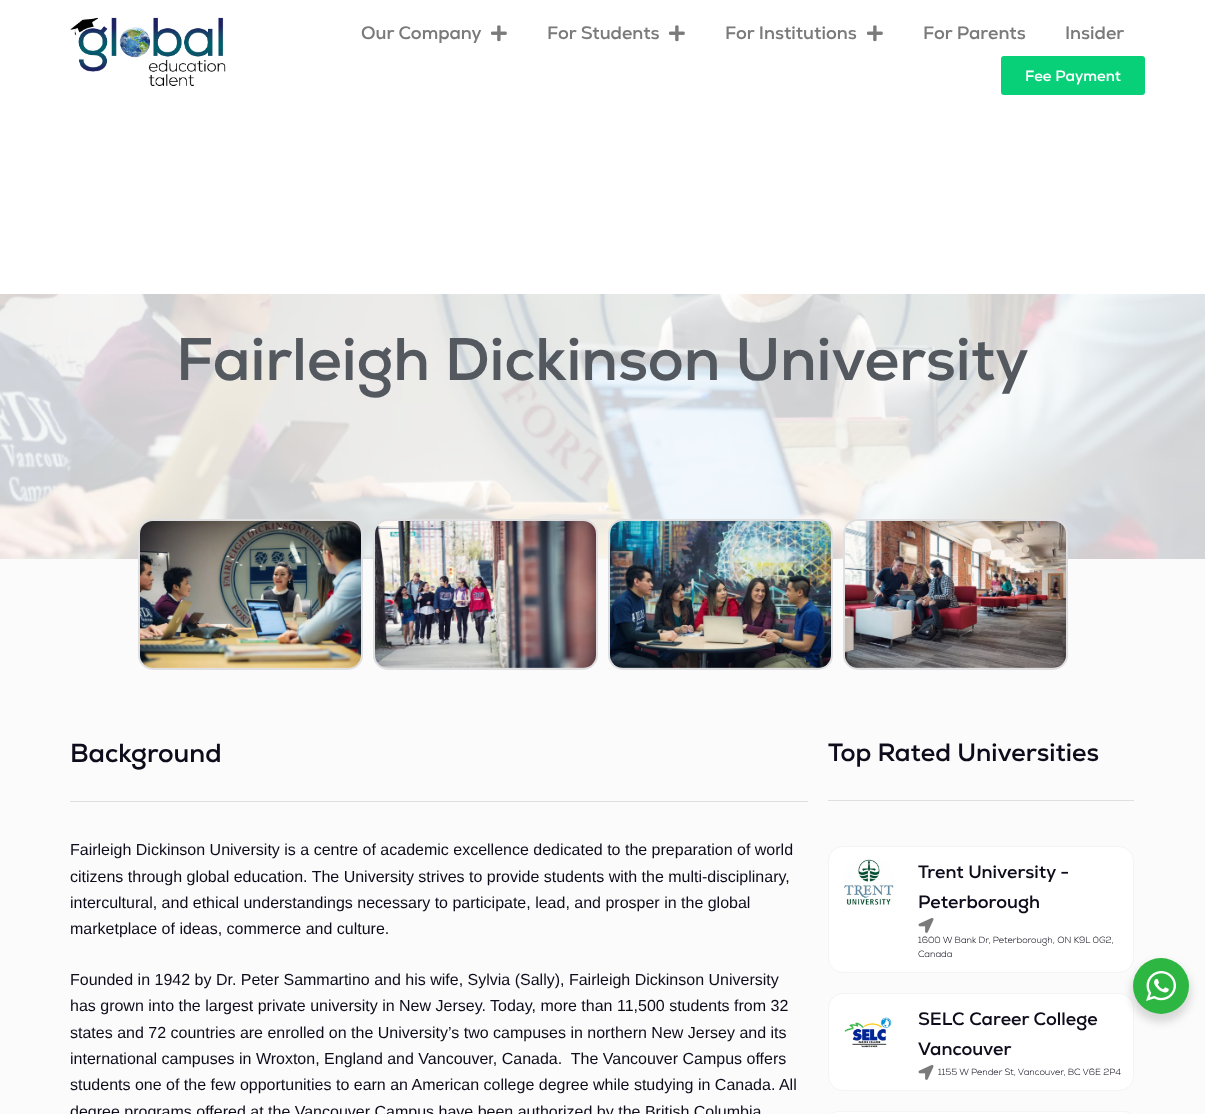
<!DOCTYPE html>
<meta charset="utf-8">
<style>body { margin: 0 } canvas { display: block }</style>
<canvas id="canvas" width="1205" height="1114"></canvas>
<img id="img1" src="img_01.png" hidden>
<img id="img2" src="img_02.png" hidden>
<img id="img3" src="img_03.png" hidden>
<img id="img4" src="img_04.png" hidden>
<img id="img5" src="img_05.png" hidden>
<img id="img6" src="img_06.png" hidden>
<img id="img7" src="img_07.png" hidden>
<img id="img8" src="img_08.png" hidden>
<img id="img9" src="img_09.png" hidden>
<img id="img10" src="img_10.png" hidden>
<img id="img11" src="img_11.png" hidden>
<script>
window.onload = function () {
	const canvas = document.getElementById("canvas");
	const ctx = canvas.getContext("2d");
	ctx.miterLimit = 4;
	ctx.fontKerning = "normal";
	function txt(s, x, y) {
		ctx.fillText(s, x, y);
	}
	function fill(x, y, w, h) {
		ctx.fillRect(x, y, w, h);
	}
	function round(x, y, w, h, r) {
		ctx.beginPath();
		ctx.roundRect(x, y, w, h, r);
		ctx.fill();
	}
	function img(id, x, y, w, h) {
		ctx.drawImage(document.getElementById(id), x, y, w, h);
	}

	ctx.fillStyle = "#FBFBFB";
	fill(0, 0, 1205, 1114);
	ctx.fillStyle = "#FFFFFF";
	fill(0, 0, 1205, 294);
	img("img1", 70, 17, 156, 69);
	img("img2", 491, 25, 16, 17);
	img("img2", 669, 25, 16, 17);
	img("img2", 867, 25, 16, 17);
	ctx.fillStyle = "#07D078";
	round(1001, 56, 144, 39, 3);
	img("img3", 0, 294, 1205, 265);
	ctx.beginPath();
	ctx.roundRect(139, 520, 223, 149, 14);
	ctx.strokeStyle = "#DFDFE2";
	ctx.lineWidth = 2;
	ctx.stroke();
	img("img4", 140, 521, 221, 147);
	ctx.beginPath();
	ctx.roundRect(374, 520, 223, 149, 14);
	ctx.stroke();
	img("img5", 375, 521, 221, 147);
	ctx.beginPath();
	ctx.roundRect(609, 520, 223, 149, 14);
	ctx.stroke();
	img("img6", 610, 521, 221, 147);
	ctx.beginPath();
	ctx.roundRect(844, 520, 223, 149, 14);
	ctx.stroke();
	img("img7", 845, 521, 221, 147);
	ctx.fillStyle = "#DFDFE2";
	fill(70, 801, 738, 1);
	fill(828, 800, 306, 1);
	ctx.fillStyle = "#FFFFFF";
	ctx.beginPath();
	ctx.roundRect(828.5, 846.5, 305, 126, 14.5);
	ctx.fill();
	ctx.strokeStyle = "#F4F4F5";
	ctx.lineWidth = 1;
	ctx.stroke();
	img("img8", 844, 859, 50, 46);
	img("img9", 918, 917, 16, 16);
	ctx.beginPath();
	ctx.roundRect(828.5, 993.5, 305, 97, 14.5);
	ctx.fill();
	ctx.stroke();
	img("img10", 844, 1017, 48, 31);
	img("img9", 918, 1064, 16, 16);
	ctx.beginPath();
	ctx.roundRect(828.5, 1111.5, 305, 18, 14.5);
	ctx.fill();
	ctx.stroke();
	ctx.fillStyle = "rgba(0, 0, 0, 0.14)";
	ctx.filter = "blur(4px)";
	ctx.beginPath();
	ctx.roundRect(1131, 962, 60, 60, 30);
	ctx.fill();
	ctx.filter = "none";
	ctx.fillStyle = "#2DB742";
	ctx.beginPath();
	ctx.arc(1161, 986, 28, 0, Math.PI * 2);
	ctx.fill();
	img("img11", 1146, 971, 30, 30);
	ctx.font = "bold 18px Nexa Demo";
	ctx.fillStyle = "#7A7A7A";
	txt("Our Company", 361, 39);
	txt("For Students", 547, 39);
	txt("For Institutions", 725, 39);
	txt("For Parents", 923, 39);
	txt("Insider", 1065, 39);
	ctx.font = "bold 15px Nexa Demo";
	ctx.fillStyle = "#FFFFFF";
	txt("Fee Payment", 1025, 81);
	ctx.font = "bold 60px Nexa Demo";
	ctx.fillStyle = "#54595F";
	txt("Fairleigh Dickinson University", 176, 380);
	ctx.font = "bold 26px Nexa Demo";
	ctx.fillStyle = "#0E0C1B";
	txt("Background", 70, 762);
	ctx.font = "16px Liberation Sans";
	txt("Fairleigh Dickinson University is a centre of academic excellence dedicated to the preparation of world", 70, 855);
	txt("citizens through global education. The University strives to provide students with the multi-disciplinary,", 70, 882);
	txt("intercultural, and ethical understandings necessary to participate, lead, and prosper in the global", 70, 908);
	txt("marketplace of ideas, commerce and culture.", 70, 934);
	txt("Founded in 1942 by Dr. Peter Sammartino and his wife, Sylvia (Sally), Fairleigh Dickinson University", 70, 985);
	txt("has grown into the largest private university in New Jersey. Today, more than 11,500 students from 32", 70, 1011);
	txt("states and 72 countries are enrolled on the University’s two campuses in northern New Jersey and its", 70, 1038);
	txt("international campuses in Wroxton, England and Vancouver, Canada.  The Vancouver Campus offers", 70, 1064);
	txt("students one of the few opportunities to earn an American college degree while studying in Canada. All", 70, 1090);
	txt("degree programs offered at the Vancouver Campus have been authorized by the British Columbia", 70, 1117);
	ctx.font = "bold 25px Nexa Demo";
	txt("Top Rated Universities", 828, 761);
	ctx.font = "bold 18px Nexa Demo";
	txt("Trent University -", 918, 878);
	txt("Peterborough", 918, 908);
	ctx.font = "300 9px Nexa Demo";
	txt("1600 W Bank Dr, Peterborough, ON K9L 0G2,", 918, 943);
	txt("Canada", 918, 957);
	ctx.font = "bold 18px Nexa Demo";
	txt("SELC Career College", 918, 1025);
	txt("Vancouver", 918, 1055);
	ctx.font = "300 9px Nexa Demo";
	txt("1155 W Pender St, Vancouver, BC V6E 2P4", 938, 1075);
};
</script>
